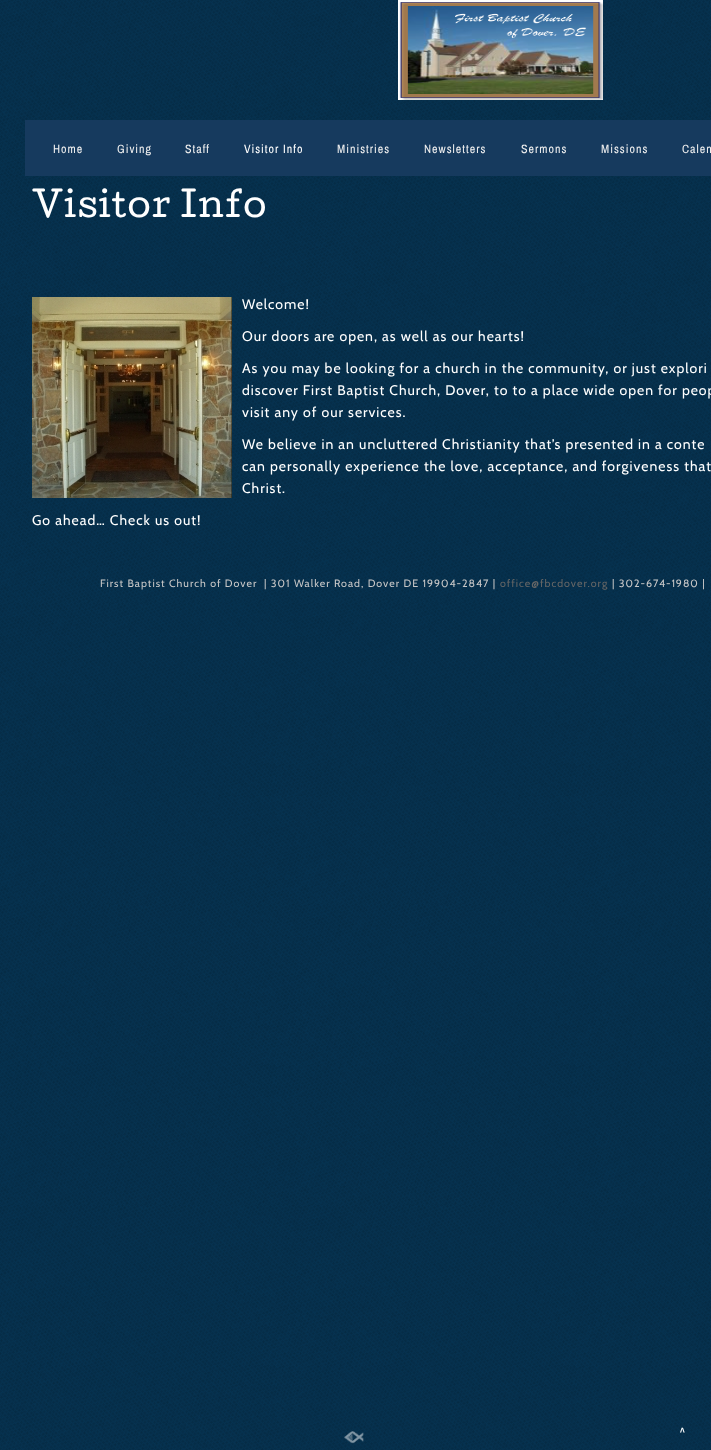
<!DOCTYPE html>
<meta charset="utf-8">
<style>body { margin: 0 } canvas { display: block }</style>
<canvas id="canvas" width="711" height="1450"></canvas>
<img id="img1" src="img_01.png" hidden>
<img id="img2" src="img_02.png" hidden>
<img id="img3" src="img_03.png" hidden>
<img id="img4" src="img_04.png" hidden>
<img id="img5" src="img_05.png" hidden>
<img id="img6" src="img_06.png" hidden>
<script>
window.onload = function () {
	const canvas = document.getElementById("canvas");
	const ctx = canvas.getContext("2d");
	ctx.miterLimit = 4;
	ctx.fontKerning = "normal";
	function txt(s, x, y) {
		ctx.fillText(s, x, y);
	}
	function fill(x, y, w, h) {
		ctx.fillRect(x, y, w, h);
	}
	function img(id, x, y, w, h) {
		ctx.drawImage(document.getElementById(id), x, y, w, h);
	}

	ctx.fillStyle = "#083D61";
	fill(0, 0, 711, 1450);
	img("img1", 0, 0, 711, 1450);
	img("img2", 398, 0, 205, 100);
	ctx.fillStyle = "#163A5E";
	fill(25, 120, 686, 56);
	ctx.fillStyle = "#083D61";
	fill(25, 176, 686, 374);
	img("img3", 25, 538, 686, 12);
	img("img4", 25, 176, 686, 362);
	img("img5", 32, 297, 200, 201);
	img("img6", 344, 1431, 20, 13);
	ctx.letterSpacing = "1px";
	ctx.font = "12px Archivo Narrow";
	ctx.fillStyle = "#F0F0F0";
	txt("Home", 53, 153);
	txt("Giving", 117, 153);
	txt("Staff", 185, 153);
	ctx.fillStyle = "#FFFFFF";
	txt("Visitor Info", 244, 153);
	ctx.fillStyle = "#F0F0F0";
	txt("Ministries", 337, 153);
	txt("Newsletters", 424, 153);
	txt("Sermons", 521, 153);
	txt("Missions", 601, 153);
	txt("Calen", 682, 153);
	ctx.font = "34px Cutive";
	ctx.fillStyle = "#FFFFFF";
	txt("Visitor Info", 32, 217);
	ctx.font = "14px Cabin";
	txt("Welcome!", 242, 309);
	txt("Our doors are open, as well as our hearts!", 242, 341);
	txt("As you may be looking for a church in the community, or just explori", 242, 373);
	txt("discover First Baptist Church, Dover, to to a place wide open for peop", 242, 395);
	txt("visit any of our services.", 242, 417);
	txt("We believe in an uncluttered Christianity that’s presented in a conte", 242, 449);
	txt("can personally experience the love, acceptance, and forgiveness that", 242, 471);
	txt("Christ.", 242, 493);
	txt("Go ahead… Check us out!", 32, 525);
	ctx.font = "10.65px Cabin";
	ctx.fillStyle = "#C8C7C7";
	txt("First Baptist Church of Dover  | 301 Walker Road, Dover DE 19904-2847 |", 100, 587);
	ctx.fillStyle = "#666666";
	txt("office@fbcdover.org", 500, 587);
	ctx.fillStyle = "#C8C7C7";
	txt("| 302-674-1980 |", 612, 587);
	ctx.font = "12px Archivo Narrow";
	ctx.fillStyle = "#FFFFFF";
	txt("^", 680, 1436);
};
</script>
